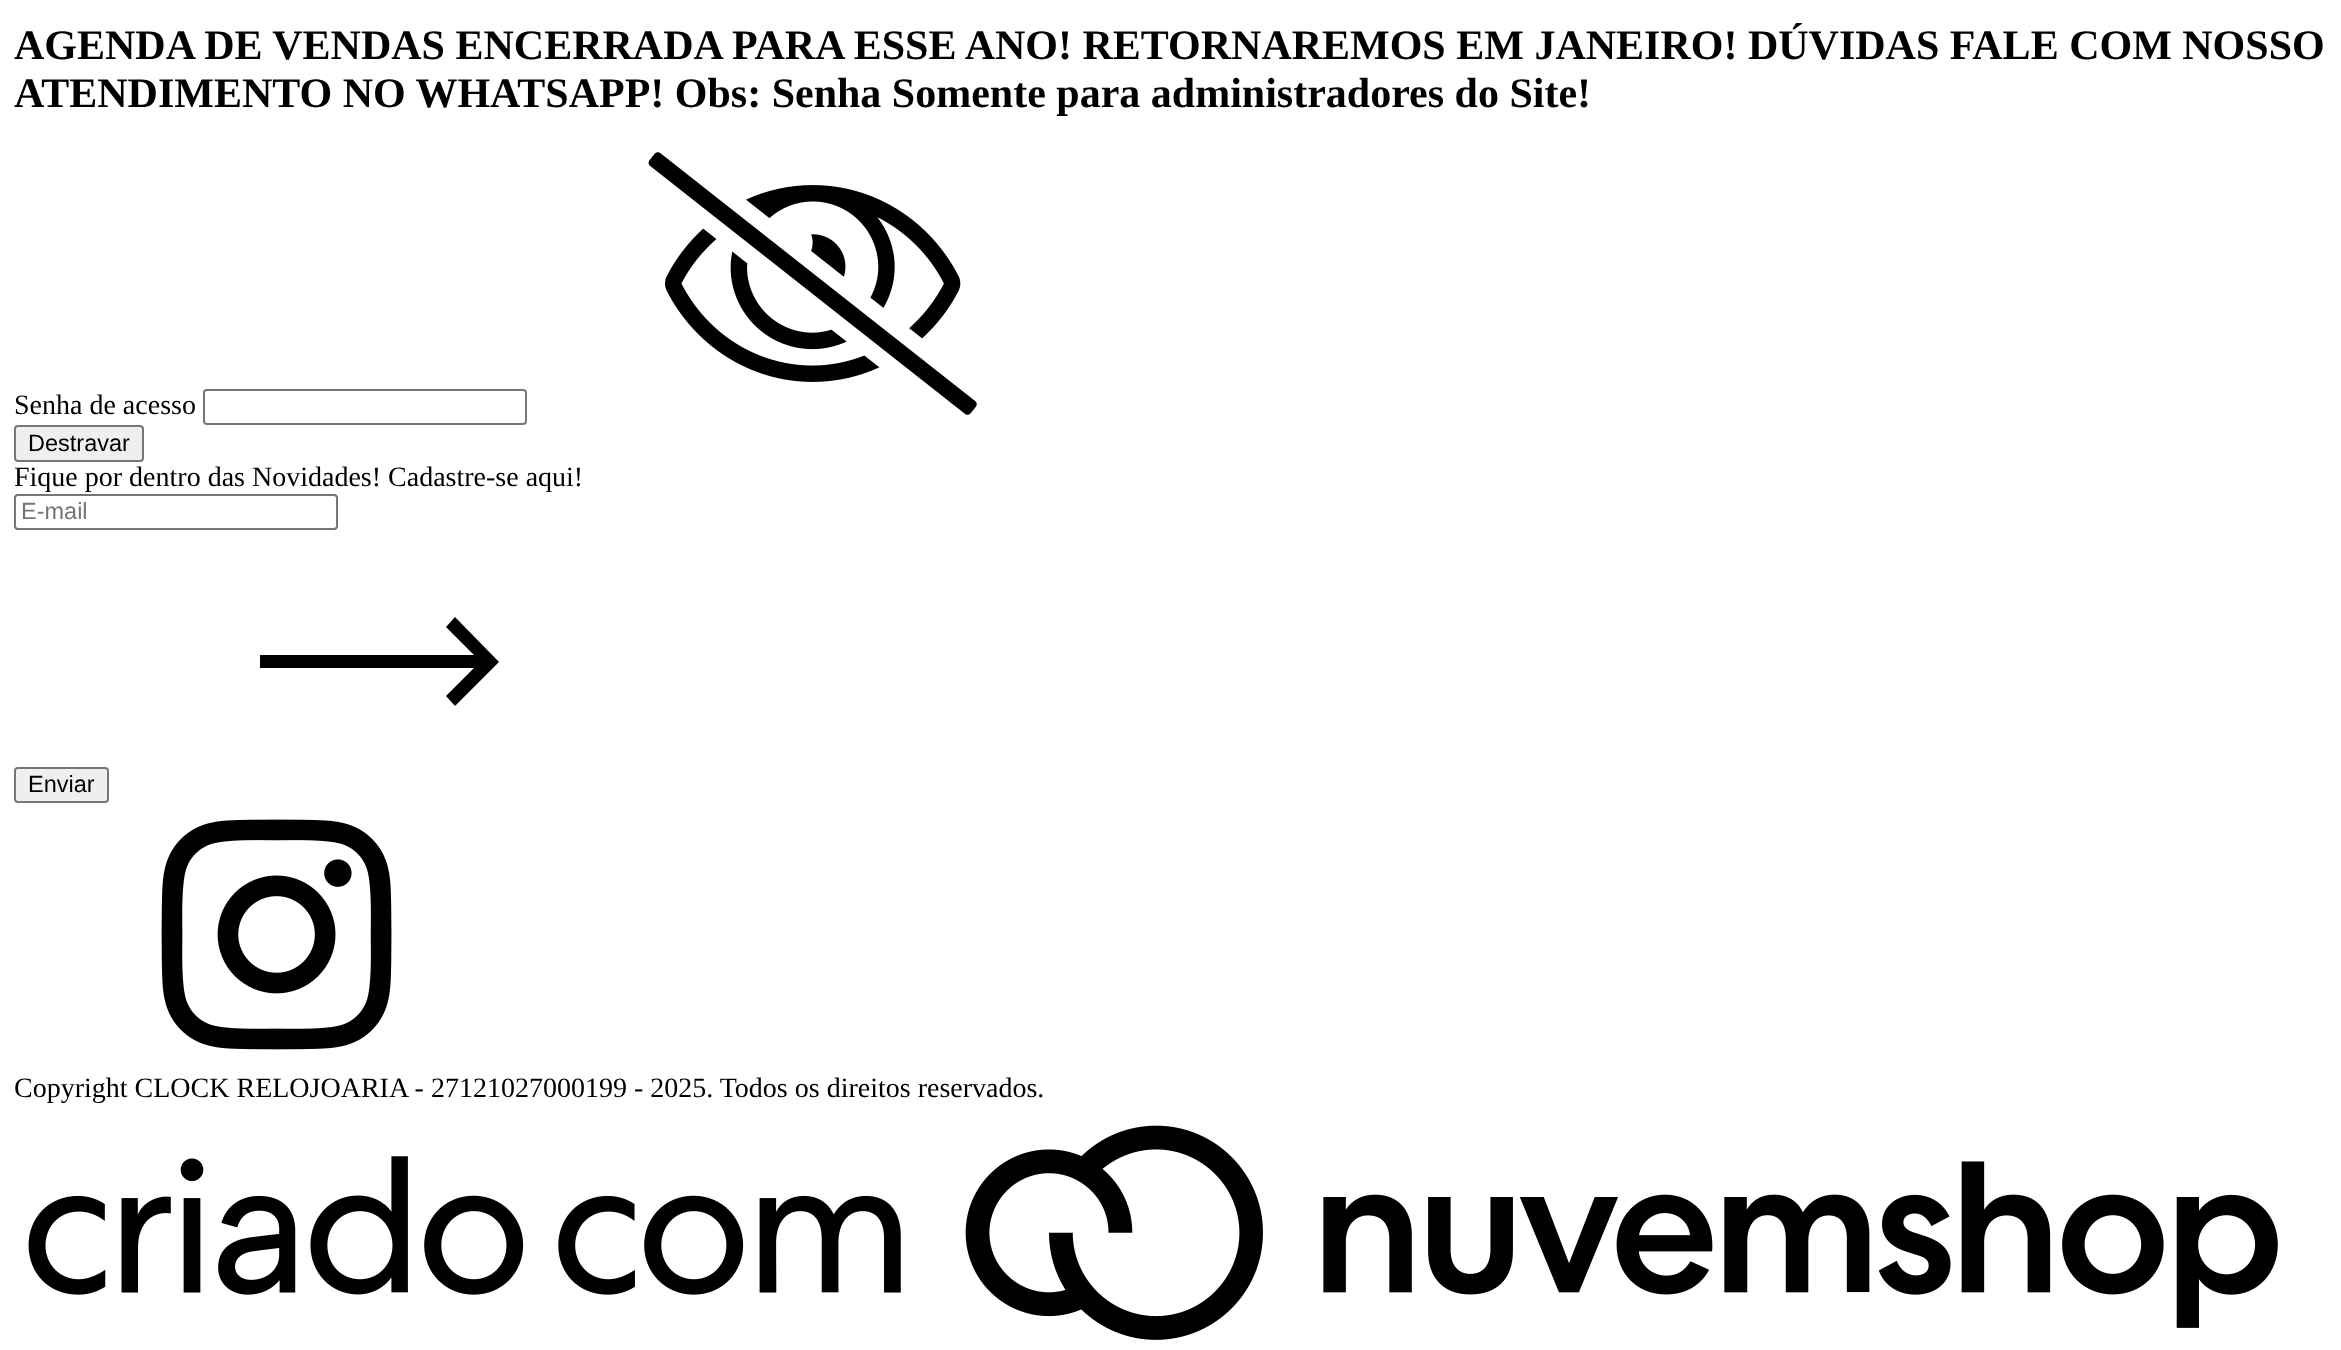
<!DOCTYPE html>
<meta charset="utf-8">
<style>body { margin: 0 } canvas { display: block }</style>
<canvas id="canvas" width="2341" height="1350"></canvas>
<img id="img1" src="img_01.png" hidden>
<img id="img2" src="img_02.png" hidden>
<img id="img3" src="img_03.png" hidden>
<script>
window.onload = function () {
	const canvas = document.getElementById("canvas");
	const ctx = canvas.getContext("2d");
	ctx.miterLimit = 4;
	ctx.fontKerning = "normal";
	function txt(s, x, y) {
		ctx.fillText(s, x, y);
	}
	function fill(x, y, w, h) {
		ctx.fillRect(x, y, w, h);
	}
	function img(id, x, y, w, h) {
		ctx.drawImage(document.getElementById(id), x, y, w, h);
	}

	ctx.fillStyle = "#FFFFFF";
	fill(0, 0, 2341, 1350);
	ctx.beginPath();
	ctx.roundRect(204, 390, 322, 34, 3);
	ctx.strokeStyle = "#767676";
	ctx.lineWidth = 2;
	ctx.stroke();
	img("img1", 648, 152, 329, 263);
	ctx.fillStyle = "#EFEFEF";
	ctx.beginPath();
	ctx.roundRect(15, 426, 128, 35, 3);
	ctx.fill();
	ctx.stroke();
	ctx.beginPath();
	ctx.roundRect(15, 495, 322, 34, 3);
	ctx.stroke();
	ctx.fillStyle = "#000000";
	ctx.beginPath();
	ctx.moveTo(474, 655);
	ctx.lineTo(446, 627);
	ctx.lineTo(455, 617);
	ctx.lineTo(499, 662);
	ctx.lineTo(455, 706);
	ctx.lineTo(446, 696);
	ctx.lineTo(474, 668);
	ctx.lineTo(260, 668);
	ctx.lineTo(260, 655);
	ctx.closePath();
	ctx.fill();
	ctx.fillStyle = "#EFEFEF";
	ctx.beginPath();
	ctx.roundRect(15, 768, 93, 34, 3);
	ctx.fill();
	ctx.stroke();
	img("img2", 161, 819, 231, 231);
	img("img3", 28, 1125, 2250, 215);
	ctx.font = "bold 42px Liberation Serif";
	ctx.fillStyle = "#000000";
	txt("AGENDA DE VENDAS ENCERRADA PARA ESSE ANO! RETORNAREMOS EM JANEIRO! DÚVIDAS FALE COM NOSSO", 14, 59);
	txt("ATENDIMENTO NO WHATSAPP! Obs: Senha Somente para administradores do Site!", 14, 107);
	ctx.font = "28px Liberation Serif";
	txt("Senha de acesso", 14, 414);
	ctx.font = "23.5px Liberation Sans";
	txt("Destravar", 28, 451);
	ctx.font = "28px Liberation Serif";
	txt("Fique por dentro das Novidades! Cadastre-se aqui!", 14, 486);
	ctx.font = "23.5px Liberation Sans";
	ctx.fillStyle = "#757575";
	txt("E-mail", 21, 519);
	ctx.fillStyle = "#000000";
	txt("Enviar", 28, 792);
	ctx.font = "28px Liberation Serif";
	txt("Copyright CLOCK RELOJOARIA - 27121027000199 - 2025. Todos os direitos reservados.", 14, 1097);
};
</script>
